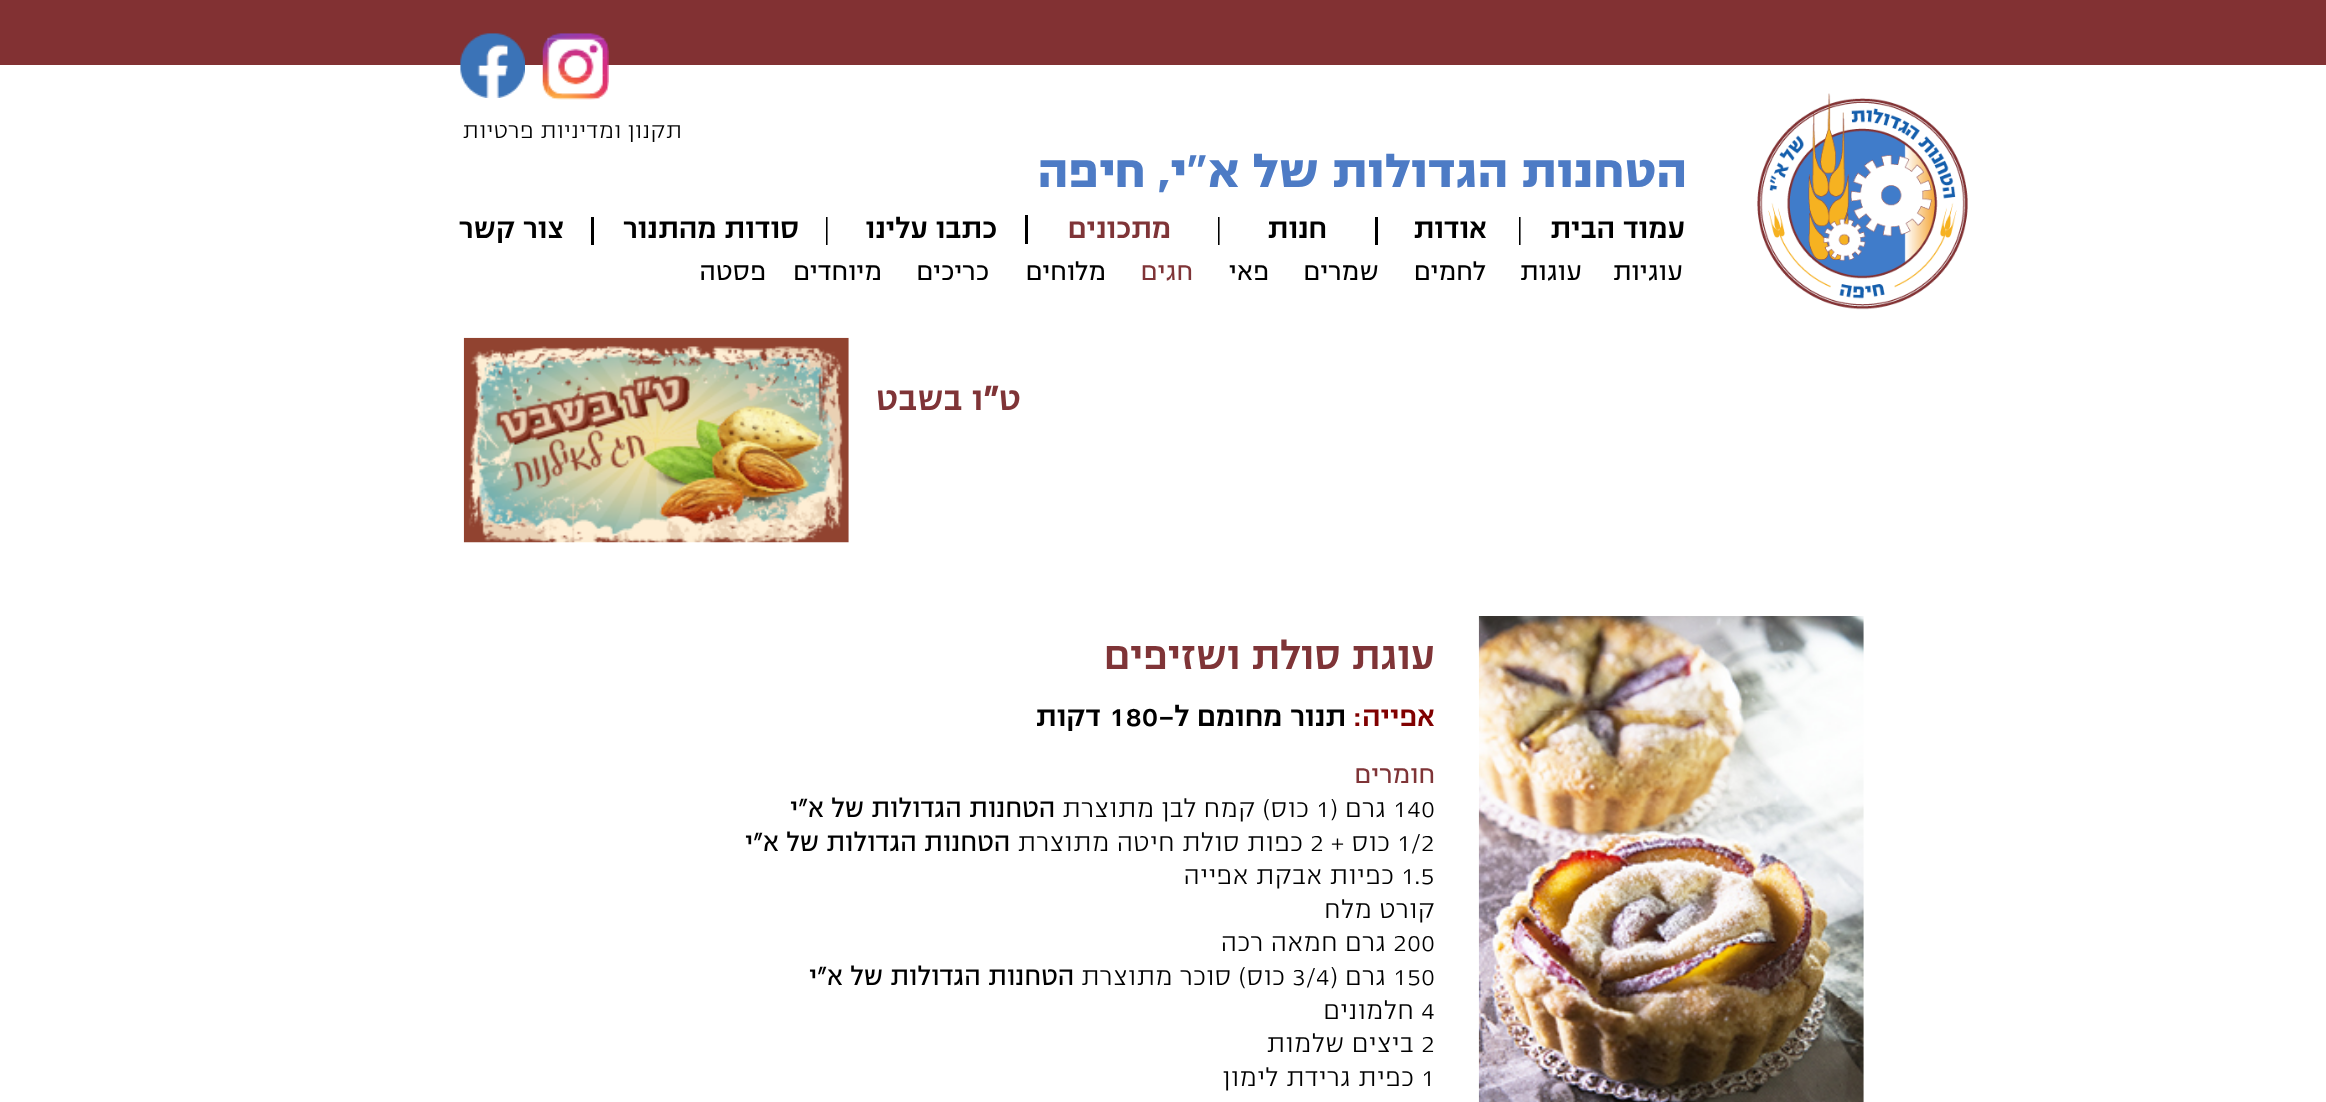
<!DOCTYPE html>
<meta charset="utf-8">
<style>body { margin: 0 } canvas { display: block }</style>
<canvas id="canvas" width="2326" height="1102"></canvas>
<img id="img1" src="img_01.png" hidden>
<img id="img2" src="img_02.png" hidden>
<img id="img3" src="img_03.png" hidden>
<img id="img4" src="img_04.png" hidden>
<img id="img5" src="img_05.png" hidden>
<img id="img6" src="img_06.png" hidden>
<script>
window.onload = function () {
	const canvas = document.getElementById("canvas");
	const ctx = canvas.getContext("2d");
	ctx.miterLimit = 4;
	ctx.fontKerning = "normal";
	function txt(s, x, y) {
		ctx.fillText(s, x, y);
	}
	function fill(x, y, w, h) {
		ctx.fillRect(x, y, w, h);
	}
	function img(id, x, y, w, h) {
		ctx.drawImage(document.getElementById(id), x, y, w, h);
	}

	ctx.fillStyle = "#FFFFFF";
	fill(0, 0, 2326, 1102);
	ctx.fillStyle = "#823133";
	fill(0, 0, 2326, 65);
	img("img1", 542, 33, 67, 67);
	img("img2", 460, 33, 65, 65);
	img("img3", 1757, 93, 211, 217);
	img("img4", 1519, 217, 2, 28);
	ctx.fillStyle = "#000000";
	fill(1375, 217, 3, 28);
	img("img4", 1218, 217, 2, 28);
	fill(1025, 215, 3, 29);
	img("img4", 826, 217, 2, 28);
	fill(591, 217, 3, 28);
	img("img5", 463, 337, 386, 206);
	img("img6", 1478, 616, 386, 486);
	ctx.direction = "rtl";
	ctx.font = "100 24.5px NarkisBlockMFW";
	txt("תקנון ומדיניות פרטיות", 682, 138);
	ctx.font = "bold 50.75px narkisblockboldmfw";
	ctx.fillStyle = "#4D7BC5";
	txt("הטחנות הגדולות של א\"י, חיפה", 1687, 187);
	ctx.font = "500 31.5px NarkisBlockMFW";
	ctx.fillStyle = "#000000";
	txt("עמוד הבית", 1685, 238);
	txt("אודות", 1487, 238);
	txt("חנ", 1327, 238);
	txt("ות", 1298, 238);
	ctx.fillStyle = "#7F3437";
	txt("מתכונים", 1171, 238);
	ctx.fillStyle = "#000000";
	txt("כתבו עלינו", 997, 238);
	txt("סודות מהתנור", 799, 238);
	txt("צור קשר", 564, 238);
	ctx.font = "28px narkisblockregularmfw";
	txt("עוגיות", 1683, 280);
	txt("עוגות", 1582, 280);
	txt("לחמים", 1486, 280);
	txt("שמרים", 1379, 280);
	txt("פאי", 1269, 280);
	ctx.fillStyle = "#7F3437";
	txt("חגים", 1193, 280);
	ctx.fillStyle = "#000000";
	txt("מלוחים", 1106, 280);
	txt("כריכים", 989, 280);
	txt("מיוחדים", 882, 280);
	txt("פסטה", 766, 280);
	ctx.font = "500 37px NarkisBlockMFW";
	ctx.fillStyle = "#7F3437";
	txt("ט", 1021, 410);
	ctx.direction = "ltr";
	ctx.font = "bold 37px 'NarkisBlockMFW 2'";
	txt("\"", 983, 410);
	ctx.direction = "rtl";
	ctx.font = "500 37px NarkisBlockMFW";
	txt("ו בשבט", 983, 410);
	ctx.font = "500 43.75px NarkisBlockMFW";
	txt("עוגת סולת ושזיפים", 1435, 669);
	ctx.font = "500 31.5px NarkisBlockMFW";
	ctx.fillStyle = "#800000";
	txt("אפייה:", 1435, 726);
	ctx.fillStyle = "#000000";
	txt("תנור מחומם ל-", 1346, 726);
	ctx.direction = "ltr";
	txt("180", 1109, 726);
	ctx.direction = "rtl";
	txt("דקות", 1101, 726);
	ctx.font = "28px narkisblockregularmfw";
	ctx.fillStyle = "#7F3437";
	txt("חומרים", 1435, 783);
	ctx.direction = "ltr";
	ctx.font = "100 28px NarkisBlockMFW";
	ctx.fillStyle = "#000000";
	txt("140", 1393, 817);
	ctx.direction = "rtl";
	txt("גרם (", 1386, 817);
	ctx.direction = "ltr";
	txt("1", 1316, 817);
	ctx.direction = "rtl";
	txt("כוס) קמח לבן מתוצרת", 1309, 817);
	ctx.font = "bold 28px NarkisBlockMFW";
	txt("הטחנות הגדולות של א\"י", 1055, 817);
	ctx.direction = "ltr";
	ctx.font = "100 28px NarkisBlockMFW";
	txt("1/2", 1397, 851);
	ctx.direction = "rtl";
	txt("כוס +", 1390, 851);
	ctx.direction = "ltr";
	txt("2", 1310, 851);
	ctx.direction = "rtl";
	txt("כפות סולת חיטה מתוצרת", 1303, 851);
	ctx.font = "bold 28px NarkisBlockMFW";
	txt("הטחנות הגדולות של א\"י", 1010, 851);
	ctx.direction = "ltr";
	ctx.font = "100 28px NarkisBlockMFW";
	txt("1.5", 1401, 884);
	ctx.direction = "rtl";
	txt("כפיות אבקת אפייה", 1394, 884);
	txt("קורט מלח", 1435, 918);
	ctx.direction = "ltr";
	txt("200", 1393, 951);
	ctx.direction = "rtl";
	txt("גרם חמאה רכה", 1386, 951);
	ctx.direction = "ltr";
	txt("150", 1393, 985);
	ctx.direction = "rtl";
	txt("גרם (", 1386, 985);
	ctx.direction = "ltr";
	txt("3/4", 1292, 985);
	ctx.direction = "rtl";
	txt("כוס) סוכר מתוצרת", 1285, 985);
	ctx.font = "bold 28px NarkisBlockMFW";
	txt("הטחנות הגדולות של א\"י", 1074, 985);
	ctx.direction = "ltr";
	ctx.font = "100 28px NarkisBlockMFW";
	txt("4", 1421, 1019);
	ctx.direction = "rtl";
	txt("חלמונים", 1414, 1019);
	ctx.direction = "ltr";
	txt("2", 1421, 1052);
	ctx.direction = "rtl";
	txt("ביצים שלמות", 1414, 1052);
	ctx.direction = "ltr";
	txt("1", 1421, 1086);
	ctx.direction = "rtl";
	txt("כפית גרידת לימון", 1414, 1086);
};
</script>
